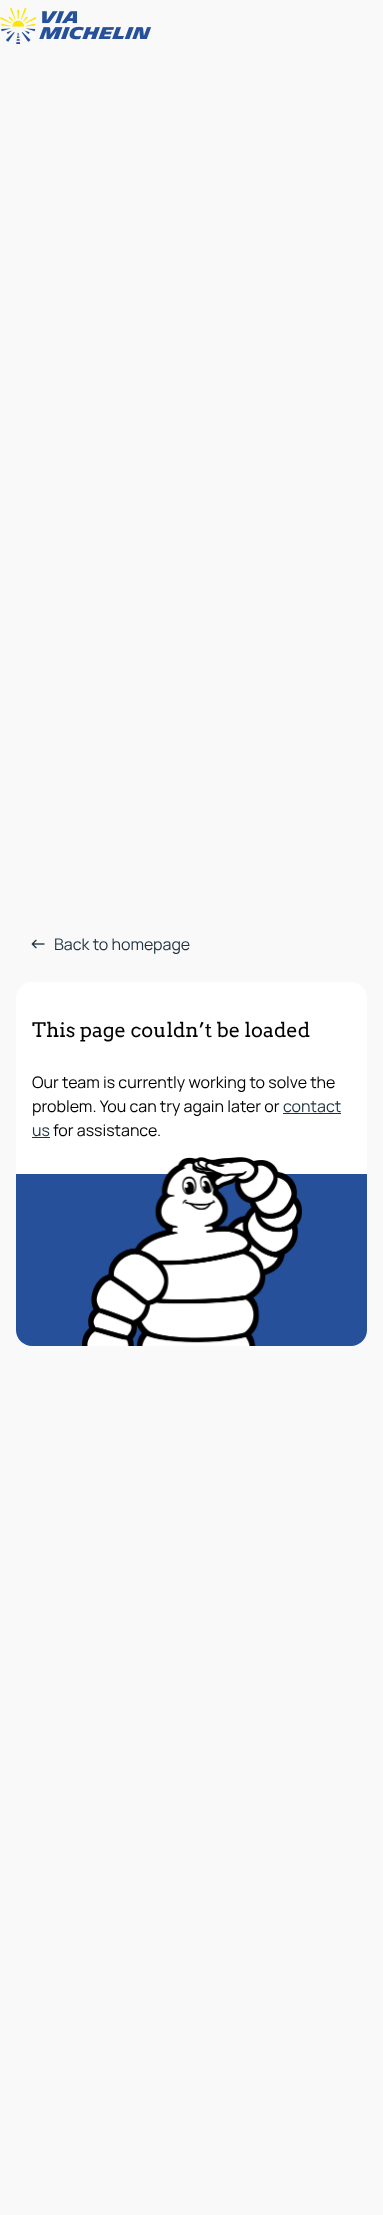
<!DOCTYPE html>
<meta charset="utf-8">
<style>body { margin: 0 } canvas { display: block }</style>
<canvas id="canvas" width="383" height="2215"></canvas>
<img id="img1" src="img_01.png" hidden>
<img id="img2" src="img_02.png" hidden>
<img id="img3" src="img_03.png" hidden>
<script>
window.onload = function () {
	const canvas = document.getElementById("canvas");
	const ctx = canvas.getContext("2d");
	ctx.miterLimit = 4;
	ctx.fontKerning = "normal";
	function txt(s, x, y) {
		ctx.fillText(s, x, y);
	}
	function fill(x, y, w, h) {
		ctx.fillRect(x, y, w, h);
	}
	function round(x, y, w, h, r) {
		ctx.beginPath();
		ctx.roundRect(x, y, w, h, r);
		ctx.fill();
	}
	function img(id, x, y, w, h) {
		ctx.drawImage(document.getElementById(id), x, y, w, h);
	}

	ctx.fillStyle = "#F9F9F9";
	fill(0, 0, 383, 2215);
	img("img1", 0, 8, 152, 36);
	img("img2", 31, 939, 14, 10);
	ctx.fillStyle = "#FFFFFF";
	round(16, 982, 351, 364, 16);
	ctx.fillStyle = "#1D3140";
	fill(283, 1113, 58, 1);
	fill(32, 1137, 18, 1);
	ctx.fillStyle = "#27509B";
	ctx.beginPath();
	ctx.roundRect(16, 1174, 351, 172, [0, 0, 16, 16]);
	ctx.fill();
	img("img3", 82, 1157, 220, 189);
	ctx.font = "200 16px Manrope";
	ctx.fillStyle = "#1D3140";
	txt("Back to homepage", 54, 950);
	ctx.font = "20px Arvo";
	ctx.fillStyle = "#000000";
	txt("This page couldn’t be loaded", 32, 1037);
	ctx.font = "200 16px Manrope";
	txt("Our team is currently working to solve the", 32, 1088);
	txt("problem. You can try again later or", 32, 1112);
	ctx.fillStyle = "#1D3140";
	txt("contact", 283, 1112);
	txt("us", 32, 1136);
	ctx.fillStyle = "#000000";
	txt("for assistance.", 53, 1136);
};
</script>
